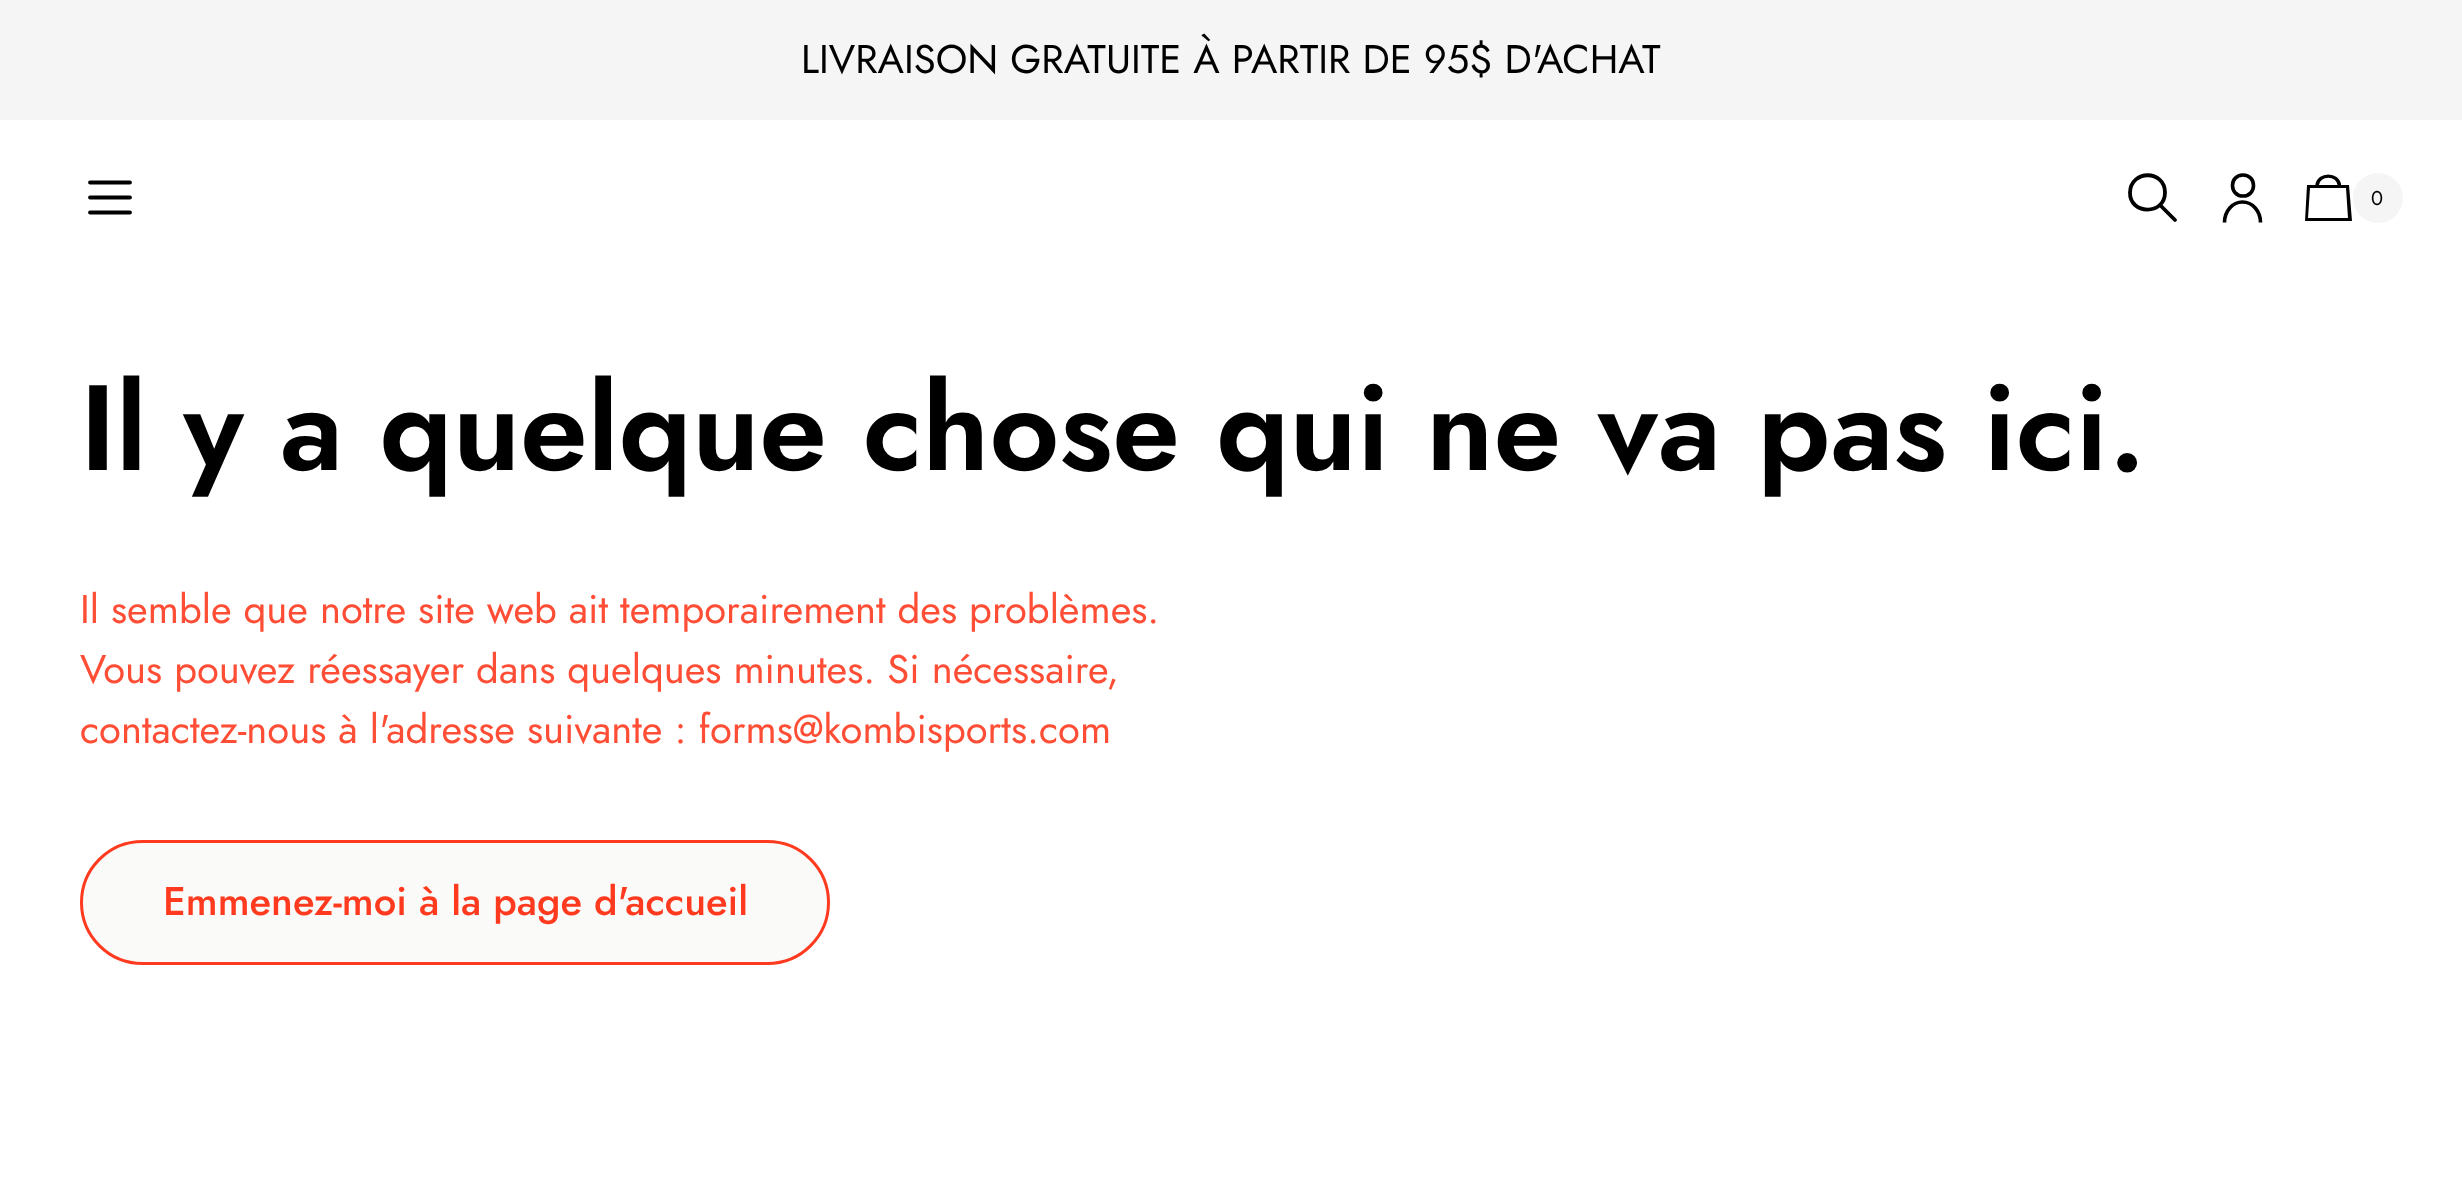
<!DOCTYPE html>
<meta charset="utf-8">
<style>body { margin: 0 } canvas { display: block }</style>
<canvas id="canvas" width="2462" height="1189"></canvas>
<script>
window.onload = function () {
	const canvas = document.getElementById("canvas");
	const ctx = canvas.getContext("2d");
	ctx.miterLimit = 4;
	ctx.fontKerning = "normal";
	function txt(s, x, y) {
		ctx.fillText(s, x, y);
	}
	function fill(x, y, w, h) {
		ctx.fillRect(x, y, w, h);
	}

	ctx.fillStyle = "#FFFFFF";
	fill(0, 0, 2462, 1189);
	ctx.fillStyle = "#F5F5F5";
	fill(0, 0, 2462, 120);
	ctx.beginPath();
	ctx.moveTo(90, 212.5);
	ctx.lineTo(130, 212.5);
	ctx.moveTo(90, 182.5);
	ctx.lineTo(130, 182.5);
	ctx.closePath();
	ctx.moveTo(90, 197.5);
	ctx.lineTo(130, 197.5);
	ctx.closePath();
	ctx.strokeStyle = "#000000";
	ctx.lineWidth = 3.8;
	ctx.lineCap = "round";
	ctx.lineJoin = "round";
	ctx.stroke();
	ctx.beginPath();
	ctx.moveTo(2175, 220);
	ctx.lineTo(2160, 205);
	ctx.closePath();
	ctx.moveTo(2165, 192.5);
	ctx.bezierCurveTo(2165, 215.5, 2129.5, 215, 2130, 192.5);
	ctx.bezierCurveTo(2130.5, 169.5, 2165, 169.5, 2165, 192.5);
	ctx.closePath();
	ctx.stroke();
	ctx.beginPath();
	ctx.moveTo(2243, 196);
	ctx.bezierCurveTo(2257, 196, 2257, 175, 2243, 175);
	ctx.bezierCurveTo(2229, 175, 2229, 196, 2243, 196);
	ctx.closePath();
	ctx.moveTo(2260.5, 222.5);
	ctx.bezierCurveTo(2260.5, 211, 2252.5, 202, 2242.5, 202);
	ctx.bezierCurveTo(2232.5, 202, 2224.5, 211, 2224.5, 222.5);
	ctx.lineWidth = 3.6;
	ctx.lineCap = "butt";
	ctx.lineJoin = "miter";
	ctx.stroke();
	ctx.fillStyle = "#000000";
	ctx.beginPath();
	ctx.moveTo(2348, 218);
	ctx.lineTo(2346, 188);
	ctx.lineTo(2310, 188);
	ctx.lineTo(2308, 218);
	ctx.closePath();
	ctx.moveTo(2352, 221);
	ctx.lineTo(2305, 221);
	ctx.lineTo(2307, 185);
	ctx.lineTo(2349, 185);
	ctx.closePath();
	ctx.fill();
	ctx.beginPath();
	ctx.moveTo(2317, 185.5);
	ctx.bezierCurveTo(2318.5, 173, 2338, 173, 2339.5, 185.5);
	ctx.lineWidth = 3.4;
	ctx.stroke();
	ctx.fillStyle = "#F5F5F5";
	ctx.beginPath();
	ctx.arc(2378, 198, 25, 0, Math.PI * 2);
	ctx.fill();
	ctx.fillStyle = "#FAFAF9";
	ctx.beginPath();
	ctx.roundRect(81.5, 841.5, 747, 122, 61);
	ctx.fill();
	ctx.strokeStyle = "#FF3A1E";
	ctx.lineWidth = 3;
	ctx.stroke();
	ctx.font = "40px Jost";
	ctx.fillStyle = "#000000";
	txt("LIVRAISON GRATUITE À PARTIR DE 95$ D'ACHAT", 801, 73);
	ctx.font = "20px Jost";
	txt("0", 2371, 205);
	ctx.font = "600 121.2px Jost";
	txt("Il y a quelque chose qui ne va pas ici.", 80, 470);
	ctx.font = "40px Jost";
	ctx.fillStyle = "#FF4E35";
	txt("Il semble que notre site web ait temporairement des problèmes.", 80, 623);
	txt("Vous pouvez réessayer dans quelques minutes. Si nécessaire,", 80, 683);
	txt("contactez-nous à l'adresse suivante : forms@kombisports.com", 80, 743);
	ctx.font = "500 40px Jost";
	ctx.fillStyle = "#FF3A1E";
	txt("Emmenez-moi à la page d'accueil", 163, 915);
};
</script>
